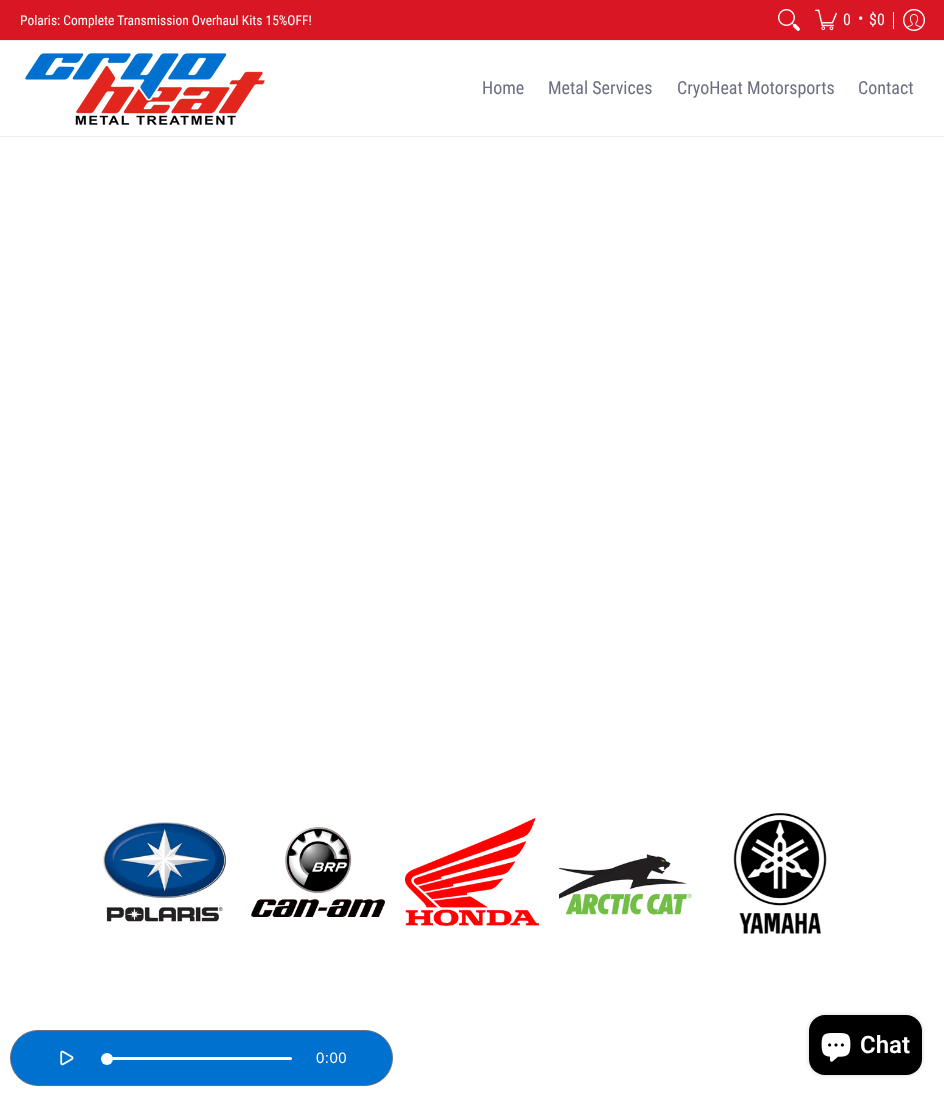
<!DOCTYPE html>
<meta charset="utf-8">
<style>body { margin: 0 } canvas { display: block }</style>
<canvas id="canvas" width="944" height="1096"></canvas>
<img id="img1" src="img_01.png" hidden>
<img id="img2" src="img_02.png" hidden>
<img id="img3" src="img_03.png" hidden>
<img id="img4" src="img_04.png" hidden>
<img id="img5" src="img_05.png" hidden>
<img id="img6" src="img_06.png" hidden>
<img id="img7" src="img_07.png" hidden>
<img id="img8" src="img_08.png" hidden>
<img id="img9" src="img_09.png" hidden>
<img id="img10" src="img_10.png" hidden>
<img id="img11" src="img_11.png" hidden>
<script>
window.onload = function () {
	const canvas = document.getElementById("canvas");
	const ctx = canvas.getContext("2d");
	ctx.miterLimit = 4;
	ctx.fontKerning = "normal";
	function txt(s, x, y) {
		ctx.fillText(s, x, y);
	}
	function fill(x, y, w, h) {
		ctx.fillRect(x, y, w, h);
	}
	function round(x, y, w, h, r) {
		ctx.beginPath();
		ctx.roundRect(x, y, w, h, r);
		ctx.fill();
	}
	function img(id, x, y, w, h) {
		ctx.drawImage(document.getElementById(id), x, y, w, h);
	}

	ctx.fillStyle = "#FFFFFF";
	fill(0, 0, 944, 1096);
	ctx.fillStyle = "#D91724";
	fill(0, 0, 944, 40);
	ctx.fillStyle = "#EDEEF4";
	fill(0, 40, 944, 1);
	img("img1", 778, 9, 22, 22);
	img("img2", 815, 9, 22, 22);
	ctx.fillStyle = "#FFFFFF";
	fill(893, 12, 1, 17);
	img("img3", 903, 9, 22, 22);
	ctx.fillStyle = "#EDEEF4";
	fill(0, 136, 944, 1);
	img("img4", 25, 53, 240, 72);
	img("img5", 102, 822, 124, 101);
	img("img6", 251, 827, 134, 90);
	img("img7", 405, 818, 134, 108);
	img("img8", 559, 854, 133, 63);
	img("img9", 733, 812, 94, 122);
	ctx.fillStyle = "rgba(0, 0, 0, 0.15)";
	ctx.filter = "blur(2.5px)";
	ctx.beginPath();
	ctx.roundRect(809, 1015, 113, 60, 16);
	ctx.fill();
	ctx.filter = "none";
	ctx.fillStyle = "#000000";
	round(809, 1015, 113, 60, 16);
	img("img10", 821, 1033, 30, 29);
	ctx.fillStyle = "#0071CE";
	ctx.beginPath();
	ctx.roundRect(10.5, 1030.5, 382, 55, 27.5);
	ctx.fill();
	ctx.strokeStyle = "#6B6F81";
	ctx.stroke();
	img("img11", 60, 1050, 14, 16);
	ctx.fillStyle = "#FFFFFF";
	round(101, 1057, 191, 3, 1.5);
	ctx.beginPath();
	ctx.arc(107, 1059, 6, 0, Math.PI * 2);
	ctx.fill();
	ctx.font = "13.5px Roboto Condensed";
	txt("Polaris: Complete Transmission Overhaul Kits 15%OFF!", 20, 25);
	ctx.font = "16px Roboto Condensed";
	txt("0", 843, 25);
	txt("•", 858, 24);
	txt("$0", 869, 25);
	ctx.font = "18px Roboto Condensed";
	ctx.fillStyle = "#6B6F81";
	txt("Home", 482, 94);
	txt("Metal Services", 548, 94);
	txt("CryoHeat Motorsports", 677, 94);
	txt("Contact", 858, 94);
	ctx.font = "600 24px Roboto";
	ctx.fillStyle = "#FFFFFF";
	txt("Chat", 860, 1053);
	ctx.letterSpacing = "0.5px";
	ctx.font = "15px Liberation Sans";
	txt("0:00", 316, 1063);
};
</script>
